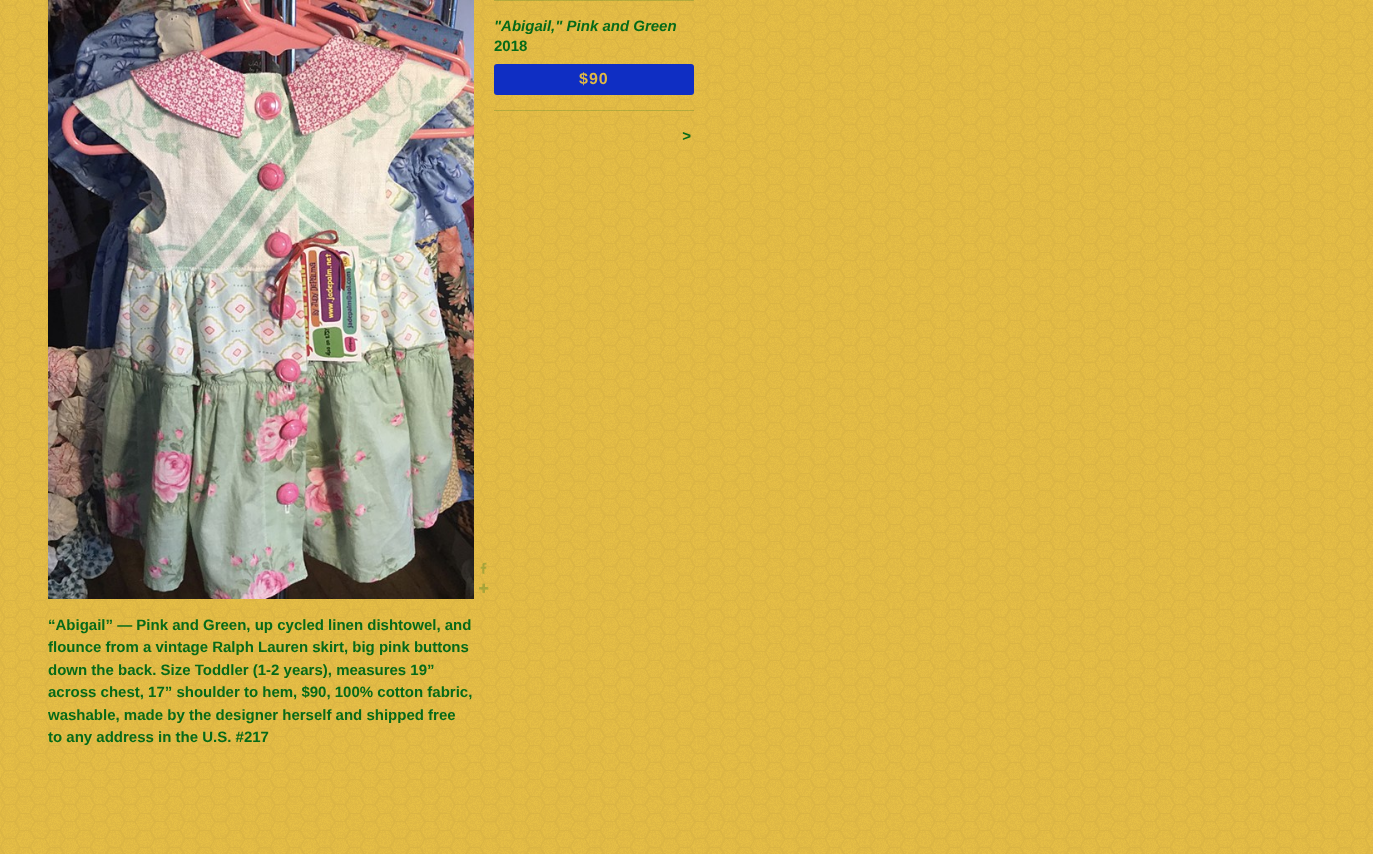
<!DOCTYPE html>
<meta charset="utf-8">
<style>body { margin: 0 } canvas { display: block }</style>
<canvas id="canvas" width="1373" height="854"></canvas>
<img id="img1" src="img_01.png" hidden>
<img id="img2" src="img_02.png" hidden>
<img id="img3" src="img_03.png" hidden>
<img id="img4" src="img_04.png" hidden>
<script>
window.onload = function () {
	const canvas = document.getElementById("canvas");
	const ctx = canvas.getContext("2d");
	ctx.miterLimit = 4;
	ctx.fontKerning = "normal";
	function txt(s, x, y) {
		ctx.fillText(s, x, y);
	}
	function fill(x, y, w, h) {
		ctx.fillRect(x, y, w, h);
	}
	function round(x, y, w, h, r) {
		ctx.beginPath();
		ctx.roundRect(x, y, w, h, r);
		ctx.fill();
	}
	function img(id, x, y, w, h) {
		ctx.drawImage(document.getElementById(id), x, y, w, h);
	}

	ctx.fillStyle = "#FFFFFF";
	fill(0, 0, 1373, 854);
	img("img1", 0, 0, 1373, 854);
	img("img2", 48, 0, 426, 599);
	img("img3", 480, 562, 7, 12);
	img("img4", 479, 583, 10, 10);
	ctx.fillStyle = "rgba(6, 106, 24, 0.2)";
	fill(494, 0, 200, 1);
	ctx.fillStyle = "#0F2EC3";
	round(494, 64, 200, 31, 3);
	ctx.fillStyle = "rgba(6, 106, 24, 0.2)";
	fill(494, 110, 200, 1);
	ctx.font = "italic bold 15px Liberation Sans";
	ctx.fillStyle = "#066A18";
	txt("\"Abigail,\" Pink and Green", 494, 31);
	ctx.font = "bold 15px Liberation Sans";
	txt("2018", 494, 51);
	ctx.letterSpacing = "1px";
	ctx.font = "bold 16px Liberation Sans";
	ctx.fillStyle = "#DFB845";
	txt("$90", 579, 84);
	ctx.font = "italic bold 15px Liberation Sans";
	ctx.fillStyle = "#066A18";
	txt(">", 682, 141);
	ctx.letterSpacing = "0px";
	ctx.font = "bold 15px Liberation Sans";
	txt("“Abigail” — Pink and Green, up cycled linen dishtowel, and", 48, 630);
	txt("flounce from a vintage Ralph Lauren skirt, big pink buttons", 48, 652);
	txt("down the back. Size Toddler (1-2 years), measures 19”", 48, 675);
	txt("across chest, 17” shoulder to hem, $90, 100% cotton fabric,", 48, 697);
	txt("washable, made by the designer herself and shipped free", 48, 720);
	txt("to any address in the U.S. #217", 48, 742);
};
</script>
